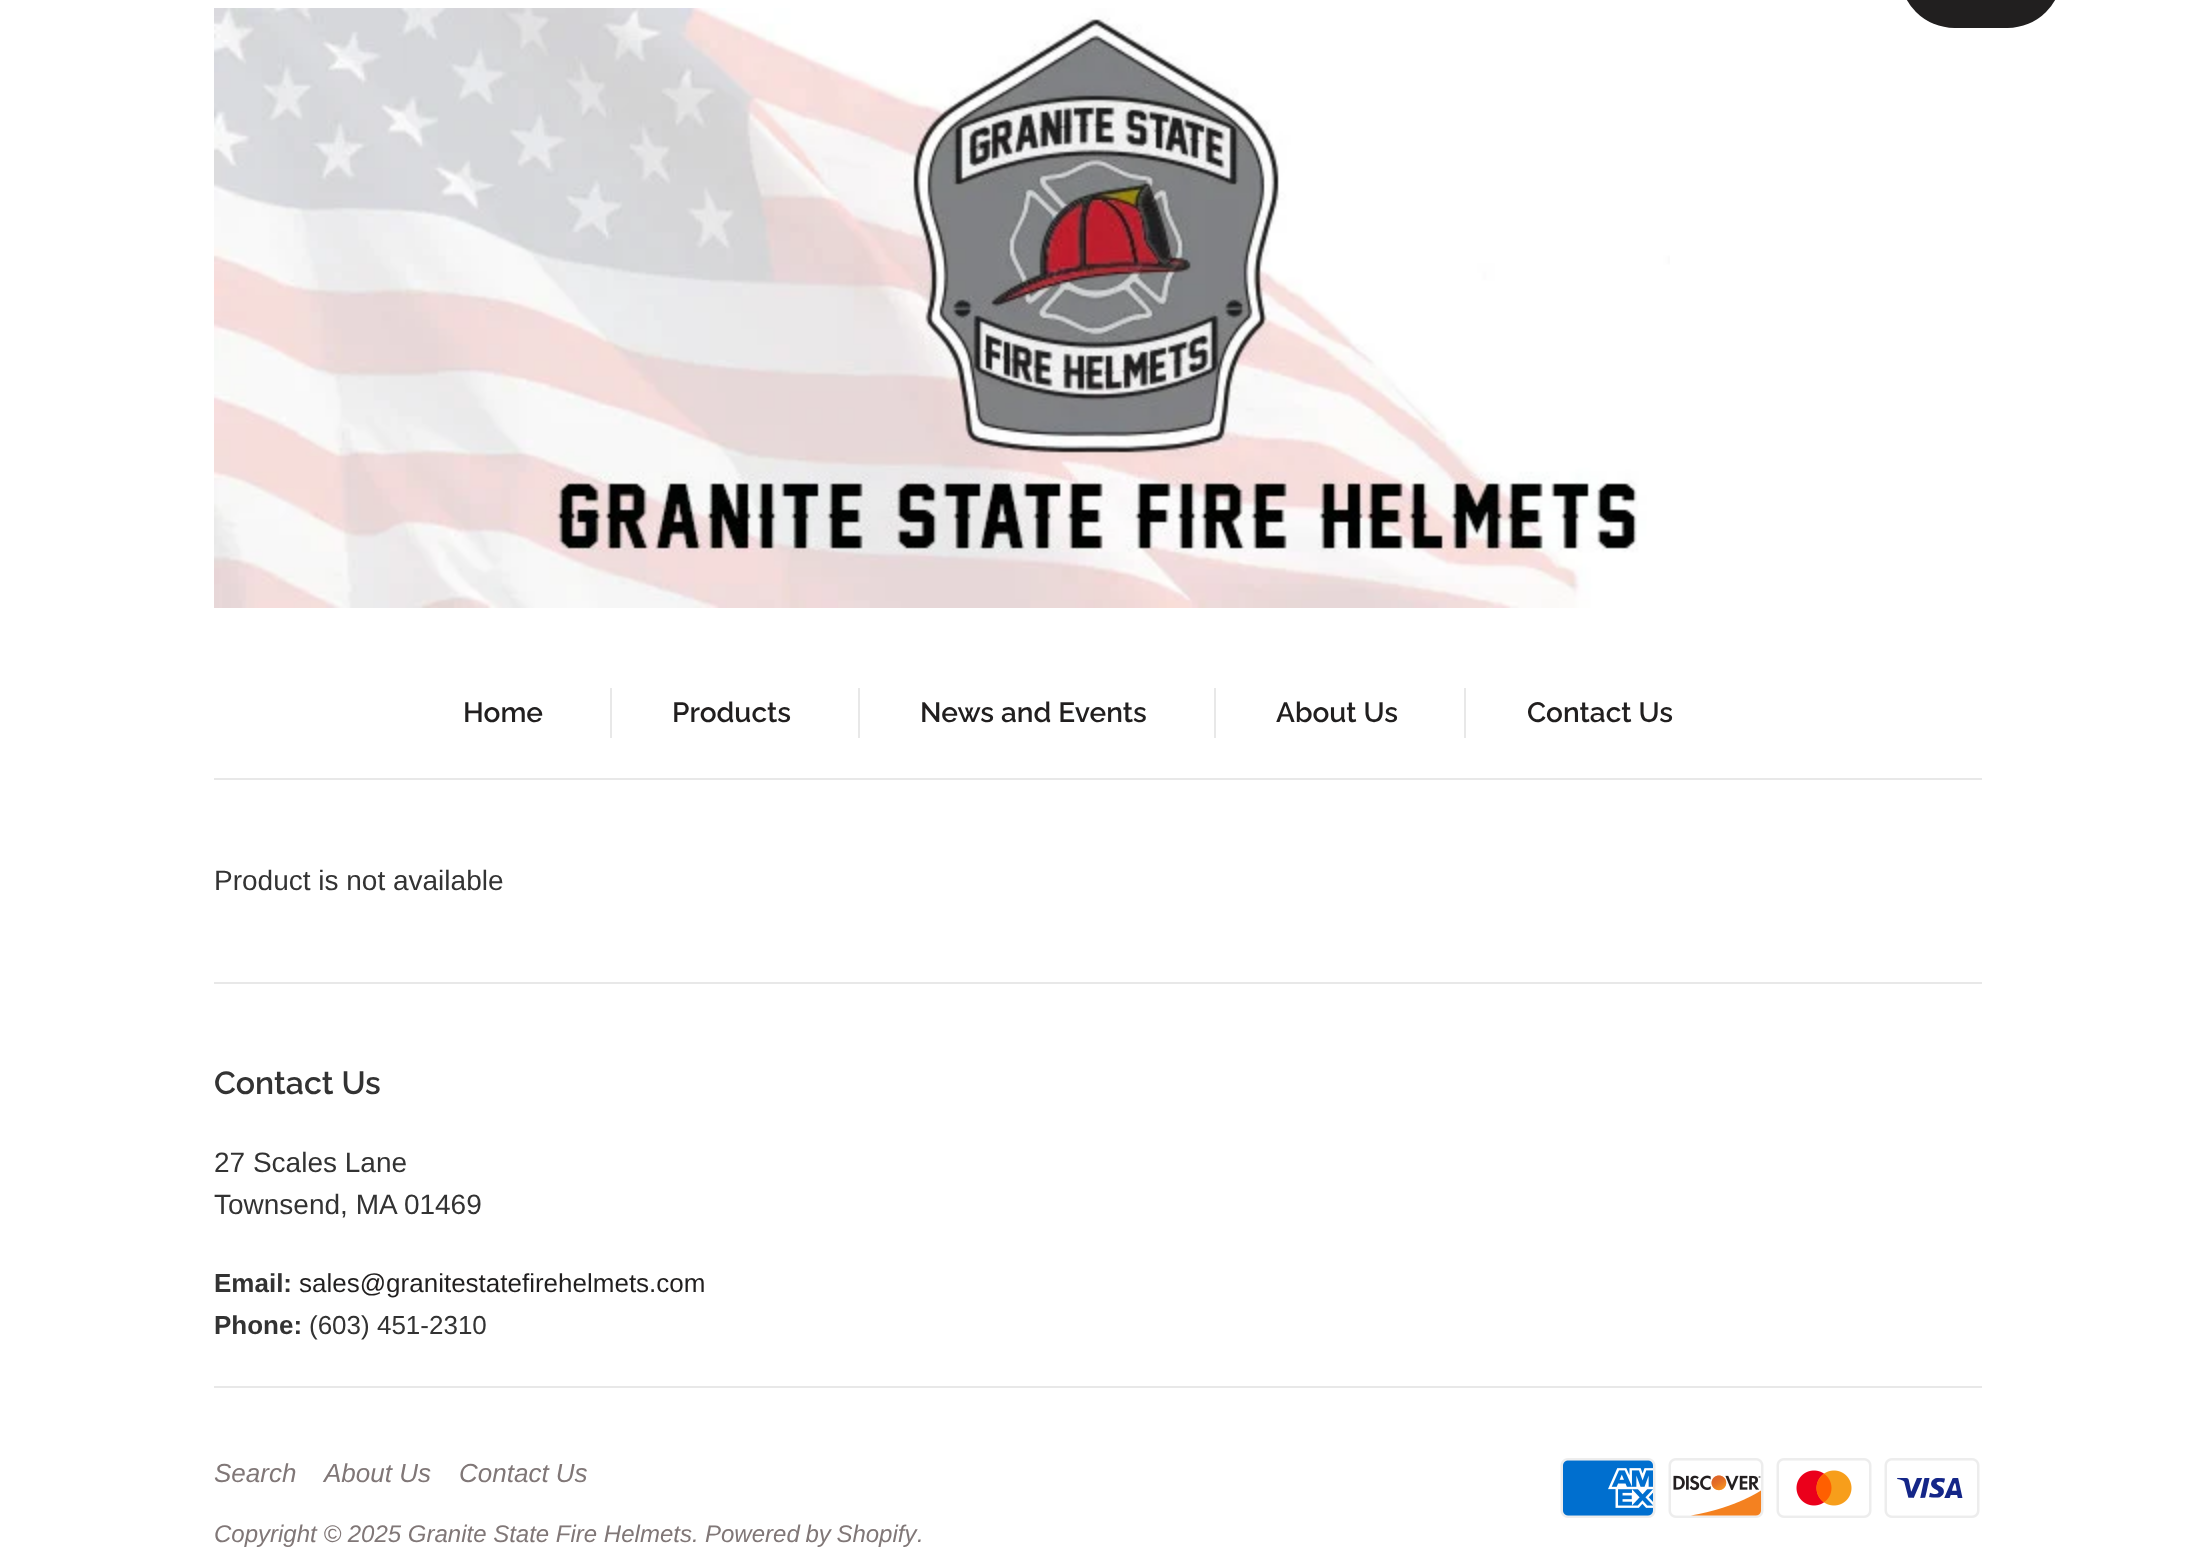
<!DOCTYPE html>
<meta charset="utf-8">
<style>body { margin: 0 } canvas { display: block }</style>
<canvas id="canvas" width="2196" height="1567"></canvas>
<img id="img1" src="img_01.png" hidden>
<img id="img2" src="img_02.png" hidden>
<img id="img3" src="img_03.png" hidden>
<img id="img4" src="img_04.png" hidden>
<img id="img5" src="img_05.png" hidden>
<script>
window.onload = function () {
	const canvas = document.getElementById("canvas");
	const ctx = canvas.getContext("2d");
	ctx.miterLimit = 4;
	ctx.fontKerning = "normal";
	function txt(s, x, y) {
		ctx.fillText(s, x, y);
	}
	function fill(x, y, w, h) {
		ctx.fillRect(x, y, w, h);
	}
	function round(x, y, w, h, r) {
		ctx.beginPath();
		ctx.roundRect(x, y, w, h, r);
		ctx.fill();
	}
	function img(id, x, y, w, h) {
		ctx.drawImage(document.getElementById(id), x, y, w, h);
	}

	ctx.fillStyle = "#FFFFFF";
	fill(0, 0, 2196, 1567);
	ctx.fillStyle = "#E8E8E8";
	fill(214, 778, 1768, 2);
	ctx.fillStyle = "#211F1F";
	round(1900, -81, 162, 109, 81);
	img("img1", 214, 8, 1456, 600);
	ctx.fillStyle = "#E8E8E8";
	fill(610, 688, 2, 50);
	fill(858, 688, 2, 50);
	fill(1214, 688, 2, 50);
	fill(1464, 688, 2, 50);
	fill(214, 982, 1768, 2);
	fill(214, 1386, 1768, 2);
	img("img2", 1560, 1458, 96, 60);
	img("img3", 1668, 1458, 96, 60);
	img("img4", 1776, 1458, 96, 60);
	img("img5", 1884, 1458, 96, 60);
	ctx.font = "100 28px Raleway";
	ctx.fillStyle = "#211F1F";
	txt("Home", 463, 722);
	txt("Products", 672, 722);
	txt("News and Events", 920, 722);
	txt("About Us", 1276, 722);
	txt("Contact Us", 1527, 722);
	ctx.font = "28px Liberation Sans";
	ctx.fillStyle = "#333333";
	txt("Product is not available", 214, 890);
	ctx.font = "100 32px Raleway";
	txt("Contact Us", 214, 1094);
	ctx.font = "28px Liberation Sans";
	txt("27 Scales Lane", 214, 1172);
	txt("Townsend, MA 01469", 214, 1214);
	ctx.font = "bold 26px Liberation Sans";
	txt("Email:", 214, 1292);
	ctx.font = "26px Liberation Sans";
	ctx.fillStyle = "#211F1F";
	txt("sales@granitestatefirehelmets.com", 299, 1292);
	ctx.font = "bold 26px Liberation Sans";
	ctx.fillStyle = "#333333";
	txt("Phone:", 214, 1334);
	ctx.font = "26px Liberation Sans";
	txt("(603) 451-2310", 309, 1334);
	ctx.font = "italic 26px Liberation Sans";
	ctx.fillStyle = "#807777";
	txt("Search", 214, 1482);
	txt("About Us", 324, 1482);
	txt("Contact Us", 459, 1482);
	ctx.font = "italic 24px Liberation Sans";
	txt("Copyright © 2025 Granite State Fire Helmets.", 214, 1542);
	ctx.wordSpacing = "-1px";
	txt("Powered by Shopify", 705, 1542);
	ctx.wordSpacing = "0px";
	txt(".", 917, 1542);
};
</script>
